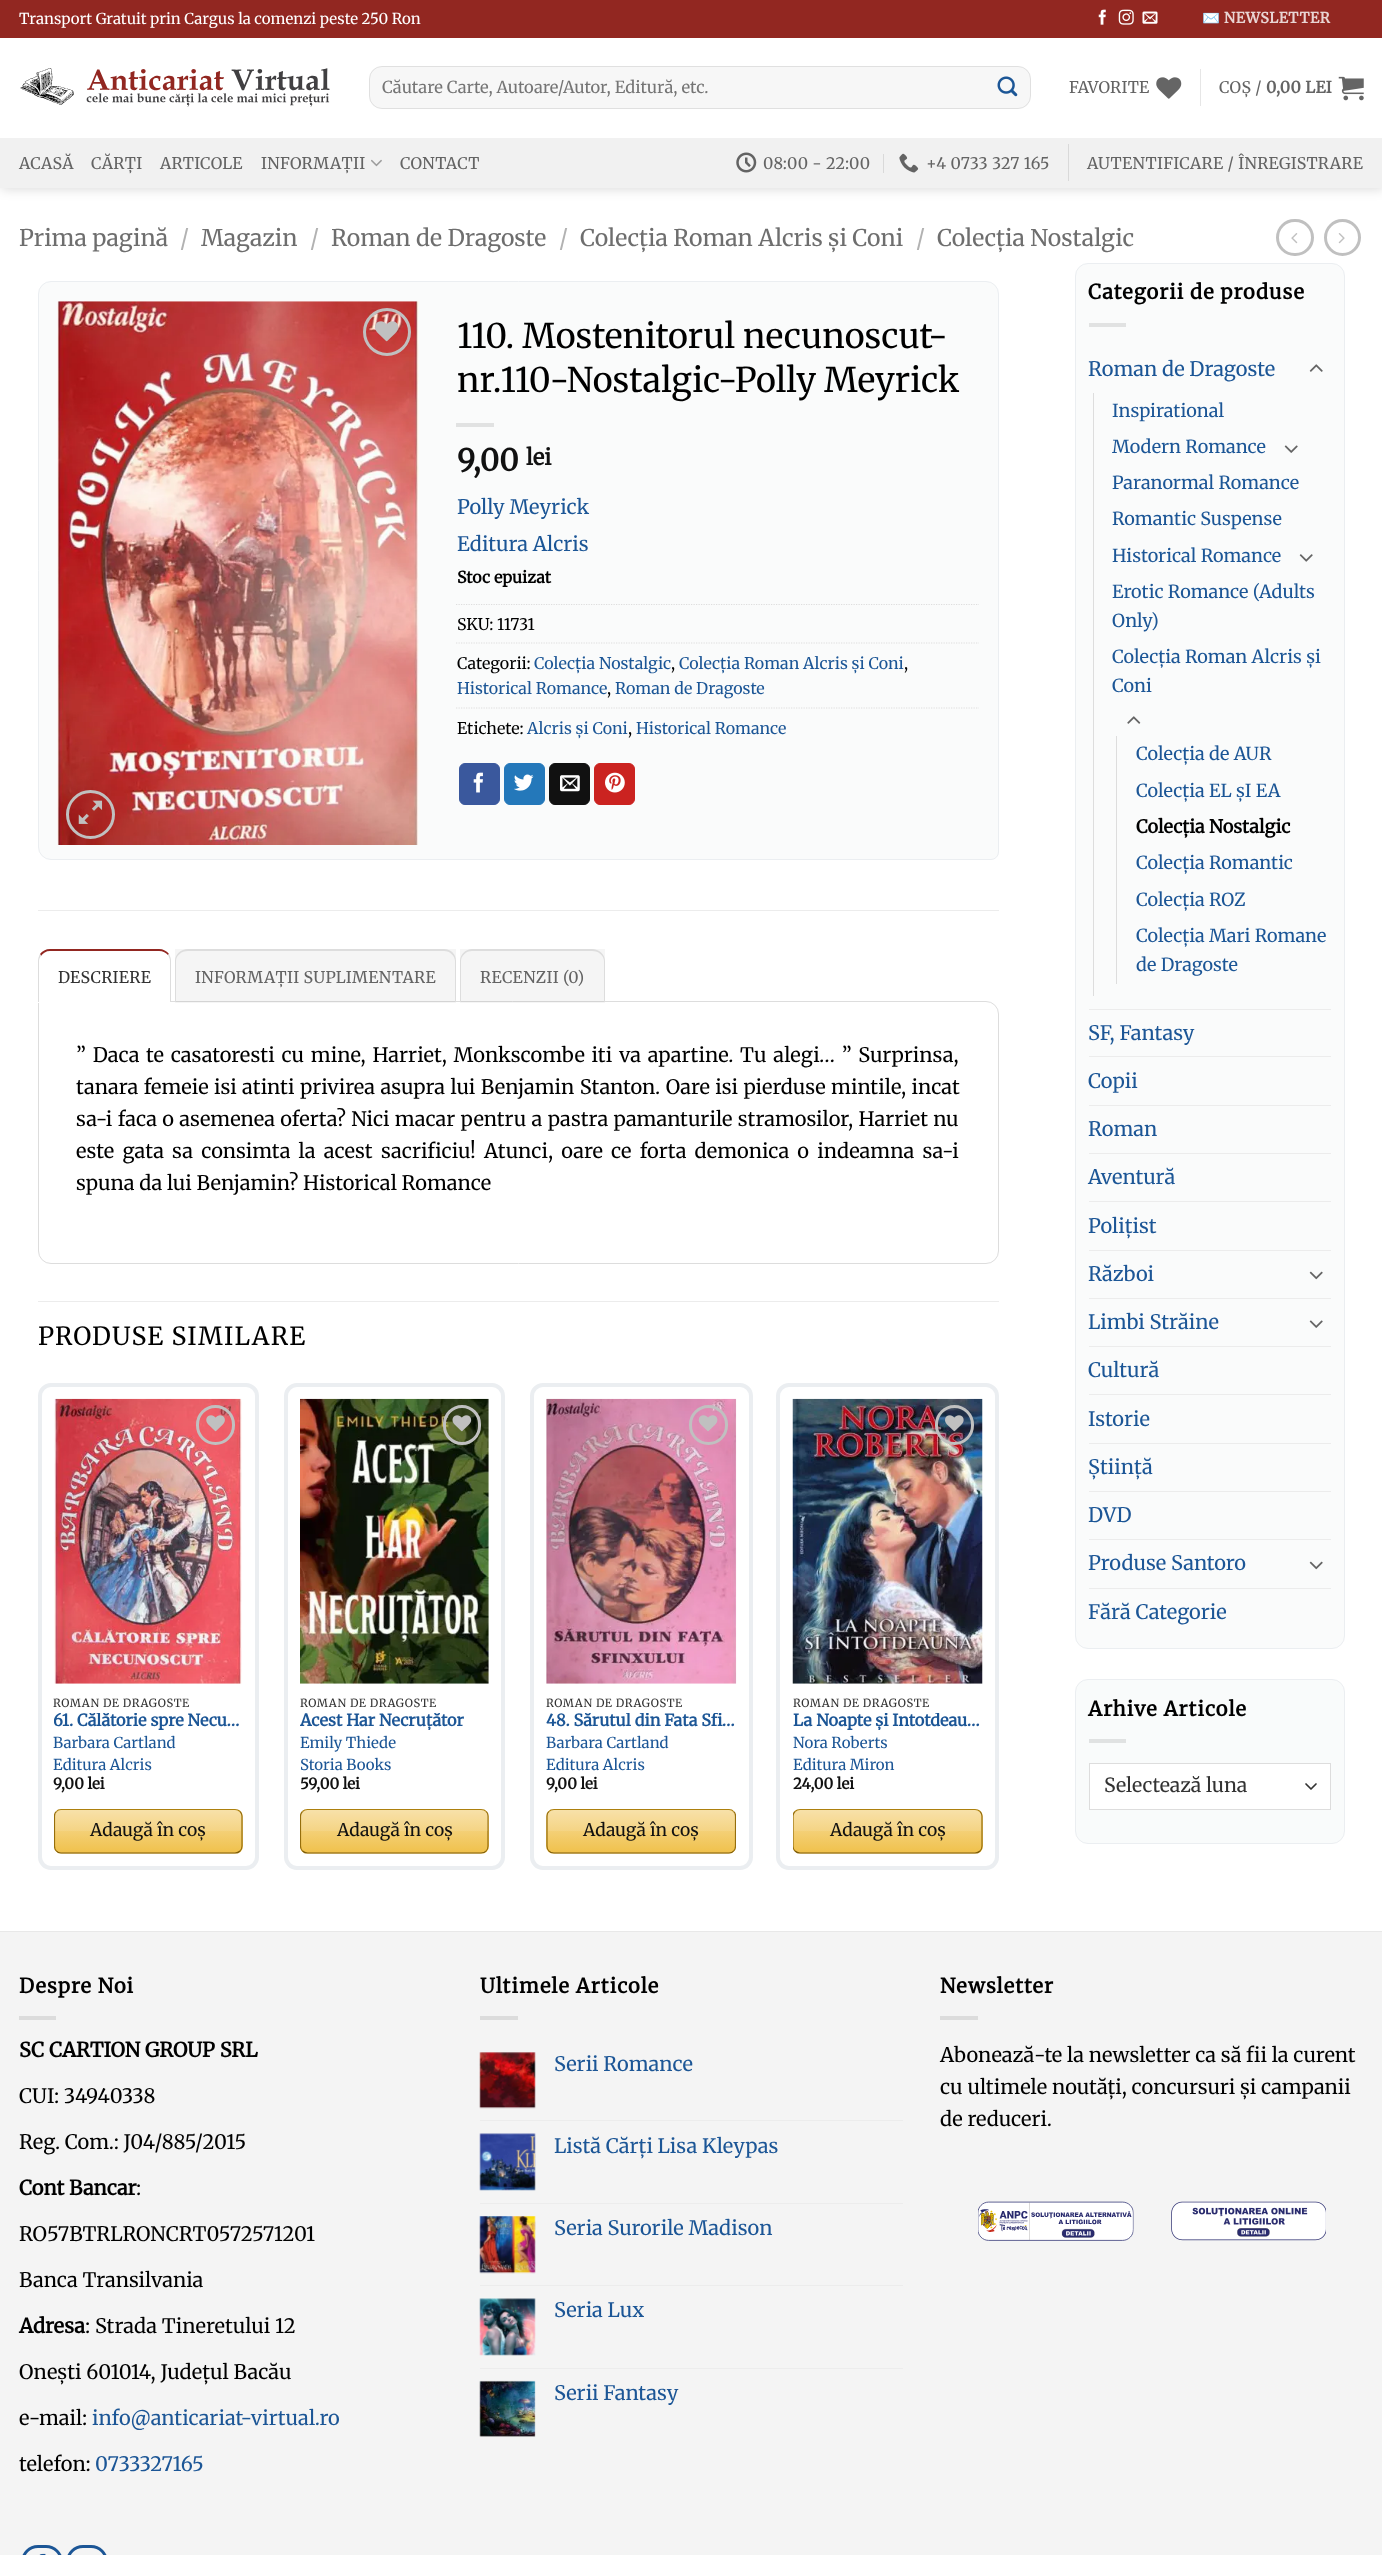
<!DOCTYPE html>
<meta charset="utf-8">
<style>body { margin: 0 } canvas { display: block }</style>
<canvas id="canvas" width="1382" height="2555"></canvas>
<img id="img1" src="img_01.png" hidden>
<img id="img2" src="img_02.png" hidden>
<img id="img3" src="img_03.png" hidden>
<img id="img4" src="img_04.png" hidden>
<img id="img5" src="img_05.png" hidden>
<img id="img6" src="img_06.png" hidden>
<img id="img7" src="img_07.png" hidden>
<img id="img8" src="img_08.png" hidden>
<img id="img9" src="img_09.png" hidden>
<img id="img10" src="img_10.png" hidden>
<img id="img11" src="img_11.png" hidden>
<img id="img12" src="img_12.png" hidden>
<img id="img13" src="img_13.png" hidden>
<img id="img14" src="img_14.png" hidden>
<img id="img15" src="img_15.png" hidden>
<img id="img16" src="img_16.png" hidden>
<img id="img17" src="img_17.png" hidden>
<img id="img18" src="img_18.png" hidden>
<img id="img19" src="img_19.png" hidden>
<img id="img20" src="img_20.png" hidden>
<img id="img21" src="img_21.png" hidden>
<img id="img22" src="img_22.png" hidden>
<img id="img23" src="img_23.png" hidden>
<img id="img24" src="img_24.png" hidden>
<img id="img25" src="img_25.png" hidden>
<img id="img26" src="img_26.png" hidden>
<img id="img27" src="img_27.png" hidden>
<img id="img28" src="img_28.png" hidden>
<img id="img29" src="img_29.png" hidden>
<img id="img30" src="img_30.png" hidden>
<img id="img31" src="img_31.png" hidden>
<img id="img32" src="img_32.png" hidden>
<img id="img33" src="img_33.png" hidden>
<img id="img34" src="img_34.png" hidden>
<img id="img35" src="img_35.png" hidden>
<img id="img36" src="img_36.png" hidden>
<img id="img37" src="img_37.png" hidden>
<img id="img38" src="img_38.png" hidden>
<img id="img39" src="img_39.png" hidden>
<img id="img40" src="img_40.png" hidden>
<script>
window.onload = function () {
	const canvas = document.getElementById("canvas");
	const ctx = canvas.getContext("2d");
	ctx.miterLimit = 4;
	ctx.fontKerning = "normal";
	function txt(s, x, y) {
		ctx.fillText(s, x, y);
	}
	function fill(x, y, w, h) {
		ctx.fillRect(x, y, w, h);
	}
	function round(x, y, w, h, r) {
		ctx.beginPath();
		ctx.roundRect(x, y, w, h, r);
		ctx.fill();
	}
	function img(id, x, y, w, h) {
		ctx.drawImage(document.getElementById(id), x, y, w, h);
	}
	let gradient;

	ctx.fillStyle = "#FFFFFF";
	fill(0, 0, 1382, 2555);
	ctx.fillStyle = "rgba(0, 0, 0, 0.15)";
	ctx.filter = "blur(6px)";
	ctx.beginPath();
	ctx.rect(1, 1, 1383, 188);
	ctx.fill();
	ctx.filter = "none";
	ctx.fillStyle = "#922721";
	fill(0, 0, 1382, 38);
	img("img1", 1098, 9, 8, 16);
	img("img2", 1118, 9, 16, 16);
	img("img3", 1142, 11, 16, 13);
	ctx.fillStyle = "#FFFFFF";
	fill(0, 38, 1382, 100);
	img("img4", 20, 68, 310, 39);
	ctx.fillStyle = "#F7F7F7";
	round(369, 66, 662, 43, 13);
	ctx.beginPath();
	ctx.roundRect(369.5, 66.5, 661, 42, 12.5);
	ctx.strokeStyle = "rgba(0, 0, 0, 0.09)";
	ctx.stroke();
	img("img5", 997, 76, 21, 21);
	img("img6", 1156, 77, 26, 22);
	ctx.fillStyle = "#E6E6E6";
	fill(1200, 69, 1, 37);
	img("img7", 1338, 76, 26, 25);
	ctx.fillStyle = "#F1F1F1";
	fill(0, 138, 1382, 50);
	img("img8", 371, 159, 11, 8);
	img("img9", 736, 152, 21, 21);
	ctx.fillStyle = "#D9D9D9";
	fill(883, 154, 1, 19);
	img("img10", 899, 153, 20, 20);
	fill(1068, 144, 1, 37);
	ctx.beginPath();
	ctx.roundRect(1277.5, 220.5, 35, 34, 17);
	ctx.strokeStyle = "#C0C0C0";
	ctx.lineWidth = 3;
	ctx.stroke();
	img("img11", 1291, 233, 7, 11);
	ctx.beginPath();
	ctx.arc(1342.5, 237.5, 17, 0, Math.PI * 2);
	ctx.stroke();
	img("img12", 1338, 233, 7, 11);
	ctx.fillStyle = "#FAFBFB";
	ctx.beginPath();
	ctx.roundRect(38.5, 281.5, 960, 578, [12.5, 12.5, 7.5, 12.5]);
	ctx.fill();
	ctx.strokeStyle = "#EBEEF1";
	ctx.lineWidth = 1;
	ctx.stroke();
	img("img13", 57, 301, 362, 544);
	ctx.beginPath();
	ctx.arc(387, 332, 22.5, 0, Math.PI * 2);
	ctx.strokeStyle = "#C0C0C0";
	ctx.lineWidth = 3;
	ctx.stroke();
	img("img14", 375, 321, 24, 21);
	ctx.beginPath();
	ctx.arc(90.5, 814.5, 23, 0, Math.PI * 2);
	ctx.stroke();
	img("img15", 78, 800, 25, 24);
	ctx.fillStyle = "#E1E2E2";
	fill(456, 423, 38, 4);
	ctx.beginPath();
	ctx.moveTo(456, 604.5);
	ctx.lineTo(979, 604.5);
	ctx.strokeStyle = "#DDDDDD";
	ctx.lineWidth = 1.2;
	ctx.setLineDash([1.25, 1.25]);
	ctx.stroke();
	ctx.beginPath();
	ctx.moveTo(456, 643);
	ctx.lineTo(979, 643);
	ctx.stroke();
	ctx.beginPath();
	ctx.moveTo(456, 708);
	ctx.lineTo(979, 708);
	ctx.stroke();
	ctx.fillStyle = "#3A589D";
	ctx.beginPath();
	ctx.roundRect(459.5, 763.5, 40, 41, 5.5);
	ctx.fill();
	ctx.strokeStyle = "#3A589D";
	ctx.lineWidth = 1;
	ctx.setLineDash([]);
	ctx.stroke();
	img("img16", 473, 772, 10, 21);
	ctx.fillStyle = "#2478BA";
	ctx.beginPath();
	ctx.roundRect(504.5, 763.5, 40, 41, 5.5);
	ctx.fill();
	ctx.strokeStyle = "#2478BA";
	ctx.stroke();
	img("img17", 514, 774, 20, 17);
	ctx.fillStyle = "#111111";
	ctx.beginPath();
	ctx.roundRect(549.5, 763.5, 40, 41, 5.5);
	ctx.fill();
	ctx.strokeStyle = "#111111";
	ctx.stroke();
	img("img18", 560, 775, 20, 17);
	ctx.fillStyle = "#CB2320";
	ctx.beginPath();
	ctx.roundRect(594.5, 763.5, 40, 41, 5.5);
	ctx.fill();
	ctx.strokeStyle = "#CB2320";
	ctx.stroke();
	img("img19", 605, 772, 20, 21);
	ctx.fillStyle = "#ECECEC";
	fill(38, 910, 961, 1);
	ctx.beginPath();
	ctx.roundRect(38.5, 1001.5, 960, 262, [0, 12.5, 12.5, 12.5]);
	ctx.strokeStyle = "#DDDDDD";
	ctx.stroke();
	ctx.fillStyle = "#FFFFFF";
	ctx.beginPath();
	ctx.roundRect(38, 949, 133, 54, [13, 13, 0, 0]);
	ctx.fill();
	ctx.fillStyle = "#922721";
	ctx.beginPath();
	ctx.moveTo(50, 949);
	ctx.lineTo(159, 949);
	ctx.bezierCurveTo(163, 949, 167, 951, 169, 954);
	ctx.lineTo(168, 955);
	ctx.bezierCurveTo(166, 953, 163, 951, 159, 951);
	ctx.lineTo(50, 951);
	ctx.bezierCurveTo(46, 951, 43, 953, 41, 956);
	ctx.lineTo(40, 954);
	ctx.bezierCurveTo(42, 951, 46, 949, 50, 949);
	ctx.closePath();
	ctx.fill();
	ctx.fillStyle = "#DDDDDD";
	ctx.beginPath();
	ctx.moveTo(168, 955);
	ctx.bezierCurveTo(169, 957, 170, 959, 170, 961);
	ctx.lineTo(170, 1002);
	ctx.lineTo(171, 1002);
	ctx.lineTo(171, 961);
	ctx.bezierCurveTo(171, 958, 170, 956, 169, 954);
	ctx.closePath();
	ctx.fill();
	ctx.beginPath();
	ctx.moveTo(40, 954);
	ctx.lineTo(41, 956);
	ctx.bezierCurveTo(40, 957, 39, 959, 39, 961);
	ctx.lineTo(39, 1002);
	ctx.lineTo(38, 1002);
	ctx.lineTo(38, 961);
	ctx.bezierCurveTo(38, 958, 39, 956, 40, 954);
	ctx.closePath();
	ctx.fill();
	ctx.fillStyle = "rgba(0, 0, 0, 0.04)";
	fill(175, 949, 281, 54);
	ctx.fillStyle = "#DDDDDD";
	ctx.beginPath();
	ctx.moveTo(188, 949);
	ctx.lineTo(444, 949);
	ctx.bezierCurveTo(451, 949, 456, 954, 456, 961);
	ctx.lineTo(456, 1002);
	ctx.lineTo(175, 1002);
	ctx.lineTo(175, 961);
	ctx.bezierCurveTo(175, 954, 181, 949, 188, 949);
	ctx.closePath();
	ctx.moveTo(188, 951);
	ctx.lineTo(444, 951);
	ctx.bezierCurveTo(450, 951, 455, 956, 455, 961);
	ctx.lineTo(455, 1002);
	ctx.lineTo(176, 1002);
	ctx.lineTo(176, 961);
	ctx.bezierCurveTo(176, 956, 181, 951, 188, 951);
	ctx.closePath();
	ctx.fill("evenodd");
	ctx.fillStyle = "rgba(0, 0, 0, 0.04)";
	fill(460, 949, 145, 54);
	ctx.fillStyle = "#DDDDDD";
	ctx.beginPath();
	ctx.moveTo(472, 949);
	ctx.lineTo(592, 949);
	ctx.bezierCurveTo(599, 949, 605, 954, 605, 961);
	ctx.lineTo(605, 1002);
	ctx.lineTo(460, 1002);
	ctx.lineTo(460, 961);
	ctx.bezierCurveTo(460, 954, 466, 949, 472, 949);
	ctx.closePath();
	ctx.moveTo(472, 951);
	ctx.lineTo(592, 951);
	ctx.bezierCurveTo(599, 951, 604, 956, 604, 961);
	ctx.lineTo(604, 1002);
	ctx.lineTo(461, 1002);
	ctx.lineTo(461, 961);
	ctx.bezierCurveTo(461, 956, 466, 951, 472, 951);
	ctx.closePath();
	ctx.fill("evenodd");
	ctx.fillStyle = "#ECECEC";
	fill(38, 1301, 961, 1);
	ctx.beginPath();
	ctx.roundRect(40, 1385, 217, 483, 11);
	ctx.strokeStyle = "#EBEEF1";
	ctx.lineWidth = 4;
	ctx.stroke();
	img("img20", 54, 1398, 188, 286);
	ctx.beginPath();
	ctx.roundRect(197.5, 1406.5, 36, 37, 18);
	ctx.strokeStyle = "#C0C0C0";
	ctx.lineWidth = 3;
	ctx.stroke();
	img("img21", 206, 1415, 19, 17);
	ctx.save();
	ctx.beginPath();
	ctx.roundRect(54, 1809, 189, 45, 8);
	ctx.clip();
	gradient = ctx.createLinearGradient(148, 1810, 148, 1853);
	gradient.addColorStop(0, "#F7DEA0");
	gradient.addColorStop(1, "#F0C14B");
	ctx.fillStyle = gradient;
	fill(54, 1810, 189, 43);
	gradient = ctx.createLinearGradient(148, 1853, 148, 1895);
	gradient.addColorStop(0, "#F7DEA0");
	gradient.addColorStop(1, "#F0C14B");
	ctx.fillStyle = gradient;
	fill(54, 1853, 189, 1);
	ctx.restore();
	ctx.beginPath();
	ctx.moveTo(56.5, 1811.5);
	ctx.bezierCurveTo(57.5, 1810, 59.5, 1809.5, 61, 1809.5);
	ctx.lineTo(235, 1809.5);
	ctx.bezierCurveTo(237, 1809.5, 238.5, 1810, 240, 1811.5);
	ctx.strokeStyle = "#AD800E";
	ctx.lineWidth = 1.2;
	ctx.stroke();
	ctx.beginPath();
	ctx.moveTo(240, 1811.5);
	ctx.bezierCurveTo(241, 1812.5, 242, 1814.5, 242, 1816);
	ctx.lineTo(242, 1846);
	ctx.bezierCurveTo(242, 1848, 241, 1850, 240, 1851);
	ctx.strokeStyle = "#966E0C";
	ctx.stroke();
	ctx.beginPath();
	ctx.moveTo(240, 1851);
	ctx.bezierCurveTo(238.5, 1852.5, 237, 1853, 235, 1853);
	ctx.lineTo(61, 1853);
	ctx.bezierCurveTo(59.5, 1853, 57.5, 1852.5, 56.5, 1851);
	ctx.strokeStyle = "#7E5D0B";
	ctx.stroke();
	ctx.save();
	ctx.beginPath();
	ctx.rect(54, 1684, 189, 182);
	ctx.clip();
	ctx.beginPath();
	ctx.moveTo(56.5, 1851);
	ctx.bezierCurveTo(55, 1850, 54.5, 1848, 54.5, 1846);
	ctx.lineTo(54.5, 1816);
	ctx.bezierCurveTo(54.5, 1814.5, 55, 1812.5, 56.5, 1811.5);
	ctx.strokeStyle = "#966E0C";
	ctx.stroke();
	ctx.restore();
	ctx.fillStyle = "rgba(255, 255, 255, 0.1)";
	ctx.beginPath();
	ctx.roundRect(55, 1810, 186, 21, [6, 6, 0, 0]);
	ctx.fill();
	ctx.beginPath();
	ctx.roundRect(286, 1385, 217, 483, 11);
	ctx.strokeStyle = "#EBEEF1";
	ctx.lineWidth = 4;
	ctx.stroke();
	img("img22", 300, 1398, 189, 286);
	ctx.beginPath();
	ctx.roundRect(444.5, 1406.5, 35, 37, 17.5);
	ctx.strokeStyle = "#C0C0C0";
	ctx.lineWidth = 3;
	ctx.stroke();
	img("img23", 452, 1415, 20, 17);
	ctx.save();
	ctx.beginPath();
	ctx.roundRect(300, 1809, 189, 45, 8);
	ctx.clip();
	gradient = ctx.createLinearGradient(394, 1810, 394, 1853);
	gradient.addColorStop(0, "#F7DEA0");
	gradient.addColorStop(1, "#F0C14B");
	ctx.fillStyle = gradient;
	fill(300, 1810, 189, 43);
	gradient = ctx.createLinearGradient(394, 1853, 394, 1895);
	gradient.addColorStop(0, "#F7DEA0");
	gradient.addColorStop(1, "#F0C14B");
	ctx.fillStyle = gradient;
	fill(300, 1853, 189, 1);
	ctx.restore();
	ctx.beginPath();
	ctx.moveTo(302.5, 1811.5);
	ctx.bezierCurveTo(304, 1810, 305.5, 1809.5, 307.5, 1809.5);
	ctx.lineTo(481, 1809.5);
	ctx.bezierCurveTo(483, 1809.5, 485, 1810, 486, 1811.5);
	ctx.strokeStyle = "#AD800E";
	ctx.lineWidth = 1.2;
	ctx.stroke();
	ctx.beginPath();
	ctx.moveTo(486, 1811.5);
	ctx.bezierCurveTo(487.5, 1812.5, 488, 1814.5, 488, 1816);
	ctx.lineTo(488, 1846);
	ctx.bezierCurveTo(488, 1848, 487.5, 1850, 486, 1851);
	ctx.strokeStyle = "#966E0C";
	ctx.stroke();
	ctx.beginPath();
	ctx.moveTo(486, 1851);
	ctx.bezierCurveTo(485, 1852.5, 483, 1853, 481, 1853);
	ctx.lineTo(307.5, 1853);
	ctx.bezierCurveTo(305.5, 1853, 304, 1852.5, 302.5, 1851);
	ctx.strokeStyle = "#7E5D0B";
	ctx.stroke();
	ctx.save();
	ctx.beginPath();
	ctx.rect(300, 1684, 189, 182);
	ctx.clip();
	ctx.beginPath();
	ctx.moveTo(302.5, 1851);
	ctx.bezierCurveTo(301.5, 1850, 300.5, 1848, 300.5, 1846);
	ctx.lineTo(300.5, 1816);
	ctx.bezierCurveTo(300.5, 1814.5, 301.5, 1812.5, 302.5, 1811.5);
	ctx.strokeStyle = "#966E0C";
	ctx.stroke();
	ctx.restore();
	ctx.beginPath();
	ctx.roundRect(301, 1810, 187, 21, [6, 6, 0, 0]);
	ctx.fill();
	ctx.beginPath();
	ctx.roundRect(532, 1385, 219, 483, 11);
	ctx.strokeStyle = "#EBEEF1";
	ctx.lineWidth = 4;
	ctx.stroke();
	img("img24", 546, 1398, 191, 286);
	ctx.beginPath();
	ctx.roundRect(690.5, 1406.5, 36, 37, 18);
	ctx.strokeStyle = "#C0C0C0";
	ctx.lineWidth = 3;
	ctx.stroke();
	img("img25", 698, 1415, 20, 17);
	ctx.save();
	ctx.beginPath();
	ctx.roundRect(546, 1809, 190, 45, 8);
	ctx.clip();
	gradient = ctx.createLinearGradient(641, 1810, 641, 1853);
	gradient.addColorStop(0, "#F7DEA0");
	gradient.addColorStop(1, "#F0C14B");
	ctx.fillStyle = gradient;
	fill(546, 1810, 190, 43);
	gradient = ctx.createLinearGradient(641, 1853, 641, 1895);
	gradient.addColorStop(0, "#F7DEA0");
	gradient.addColorStop(1, "#F0C14B");
	ctx.fillStyle = gradient;
	fill(546, 1853, 190, 1);
	ctx.restore();
	ctx.beginPath();
	ctx.moveTo(549, 1811.5);
	ctx.bezierCurveTo(550, 1810, 552, 1809.5, 554, 1809.5);
	ctx.lineTo(729, 1809.5);
	ctx.bezierCurveTo(730.5, 1809.5, 732.5, 1810, 733.5, 1811.5);
	ctx.strokeStyle = "#AD800E";
	ctx.lineWidth = 1.2;
	ctx.stroke();
	ctx.save();
	ctx.beginPath();
	ctx.rect(546, 1684, 190, 182);
	ctx.clip();
	ctx.beginPath();
	ctx.moveTo(733.5, 1811.5);
	ctx.bezierCurveTo(735, 1812.5, 735.5, 1814.5, 735.5, 1816);
	ctx.lineTo(735.5, 1846);
	ctx.bezierCurveTo(735.5, 1848, 735, 1850, 733.5, 1851);
	ctx.strokeStyle = "#966E0C";
	ctx.stroke();
	ctx.restore();
	ctx.beginPath();
	ctx.moveTo(733.5, 1851);
	ctx.bezierCurveTo(732.5, 1852.5, 730.5, 1853, 729, 1853);
	ctx.lineTo(554, 1853);
	ctx.bezierCurveTo(552, 1853, 550, 1852.5, 549, 1851);
	ctx.strokeStyle = "#7E5D0B";
	ctx.stroke();
	ctx.beginPath();
	ctx.moveTo(549, 1851);
	ctx.bezierCurveTo(547.5, 1850, 547, 1848, 547, 1846);
	ctx.lineTo(547, 1816);
	ctx.bezierCurveTo(547, 1814.5, 547.5, 1812.5, 549, 1811.5);
	ctx.strokeStyle = "#966E0C";
	ctx.stroke();
	ctx.beginPath();
	ctx.roundRect(548, 1810, 187, 21, [6, 6, 0, 0]);
	ctx.fill();
	ctx.beginPath();
	ctx.roundRect(778, 1385, 219, 483, 11);
	ctx.strokeStyle = "#EBEEF1";
	ctx.lineWidth = 4;
	ctx.stroke();
	img("img26", 792, 1398, 191, 286);
	ctx.beginPath();
	ctx.roundRect(936.5, 1406.5, 36, 37, 18);
	ctx.strokeStyle = "#C0C0C0";
	ctx.lineWidth = 3;
	ctx.stroke();
	img("img27", 945, 1415, 19, 17);
	ctx.save();
	ctx.beginPath();
	ctx.roundRect(793, 1809, 190, 45, 8);
	ctx.clip();
	gradient = ctx.createLinearGradient(888, 1810, 888, 1853);
	gradient.addColorStop(0, "#F7DEA0");
	gradient.addColorStop(1, "#F0C14B");
	ctx.fillStyle = gradient;
	fill(793, 1810, 190, 43);
	gradient = ctx.createLinearGradient(888, 1853, 888, 1895);
	gradient.addColorStop(0, "#F7DEA0");
	gradient.addColorStop(1, "#F0C14B");
	ctx.fillStyle = gradient;
	fill(793, 1853, 190, 1);
	ctx.restore();
	ctx.beginPath();
	ctx.moveTo(795, 1811.5);
	ctx.bezierCurveTo(796.5, 1810, 798, 1809.5, 800, 1809.5);
	ctx.lineTo(975, 1809.5);
	ctx.bezierCurveTo(977, 1809.5, 978.5, 1810, 980, 1811.5);
	ctx.strokeStyle = "#AD800E";
	ctx.lineWidth = 1.2;
	ctx.stroke();
	ctx.beginPath();
	ctx.moveTo(980, 1811.5);
	ctx.bezierCurveTo(981, 1812.5, 982, 1814.5, 982, 1816);
	ctx.lineTo(982, 1846);
	ctx.bezierCurveTo(982, 1848, 981, 1850, 980, 1851);
	ctx.strokeStyle = "#966E0C";
	ctx.stroke();
	ctx.beginPath();
	ctx.moveTo(980, 1851);
	ctx.bezierCurveTo(978.5, 1852.5, 977, 1853, 975, 1853);
	ctx.lineTo(800, 1853);
	ctx.bezierCurveTo(798, 1853, 796.5, 1852.5, 795, 1851);
	ctx.strokeStyle = "#7E5D0B";
	ctx.stroke();
	ctx.save();
	ctx.beginPath();
	ctx.rect(793, 1684, 190, 182);
	ctx.clip();
	ctx.beginPath();
	ctx.moveTo(795, 1851);
	ctx.bezierCurveTo(794, 1850, 793, 1848, 793, 1846);
	ctx.lineTo(793, 1816);
	ctx.bezierCurveTo(793, 1814.5, 794, 1812.5, 795, 1811.5);
	ctx.strokeStyle = "#966E0C";
	ctx.stroke();
	ctx.restore();
	ctx.beginPath();
	ctx.roundRect(794, 1810, 187, 21, [6, 6, 0, 0]);
	ctx.fill();
	ctx.fillStyle = "#FAFBFB";
	ctx.beginPath();
	ctx.roundRect(1075.5, 263.5, 269, 1385, 12.5);
	ctx.fill();
	ctx.strokeStyle = "#EBEEF1";
	ctx.lineWidth = 1;
	ctx.stroke();
	ctx.fillStyle = "#E1E2E2";
	fill(1089, 323, 37, 4);
	img("img28", 1309, 364, 14, 8);
	ctx.fillStyle = "#DDDDDD";
	fill(1093, 393, 1, 603);
	img("img29", 1284, 445, 14, 8);
	img("img30", 1299, 554, 14, 8);
	img("img31", 1127, 716, 14, 8);
	fill(1116, 736, 1, 248);
	ctx.fillStyle = "#ECECEC";
	fill(1089, 1009, 242, 1);
	fill(1089, 1056, 242, 1);
	fill(1089, 1105, 242, 1);
	fill(1089, 1153, 242, 1);
	fill(1089, 1201, 242, 1);
	fill(1089, 1250, 242, 1);
	img("img32", 1309, 1271, 14, 9);
	fill(1089, 1298, 242, 1);
	img("img29", 1309, 1320, 14, 8);
	fill(1089, 1346, 242, 1);
	fill(1089, 1394, 242, 1);
	fill(1089, 1443, 242, 1);
	fill(1089, 1491, 242, 1);
	fill(1089, 1539, 242, 1);
	img("img32", 1309, 1561, 14, 9);
	fill(1089, 1588, 242, 1);
	ctx.fillStyle = "#F9FBFB";
	ctx.beginPath();
	ctx.roundRect(1075.5, 1679.5, 269, 164, 12.5);
	ctx.fill();
	ctx.stroke();
	ctx.fillStyle = "#E0E2E2";
	fill(1089, 1739, 37, 4);
	ctx.fillStyle = "#FFFFFF";
	fill(1090, 1764, 240, 45);
	ctx.beginPath();
	ctx.moveTo(1306, 1784);
	ctx.lineTo(1311, 1789);
	ctx.lineTo(1316, 1784);
	ctx.strokeStyle = "#333333";
	ctx.lineWidth = 1.7;
	ctx.lineCap = "round";
	ctx.lineJoin = "round";
	ctx.stroke();
	ctx.strokeStyle = "#DDDDDD";
	ctx.lineWidth = 1;
	ctx.lineJoin = "miter";
	ctx.strokeRect(1089.5, 1763.5, 241, 46);
	ctx.fillStyle = "#F4F4F4";
	fill(0, 1932, 1382, 623);
	ctx.fillStyle = "#E8E8E8";
	fill(0, 1931, 1382, 1);
	ctx.fillStyle = "#DCDCDC";
	fill(19, 2016, 37, 4);
	ctx.beginPath();
	ctx.roundRect(22.5, 2546.5, 39, 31, 19);
	ctx.strokeStyle = "#1C5696";
	ctx.lineWidth = 3;
	ctx.stroke();
	img("img33", 39, 2553, 7, 2);
	ctx.beginPath();
	ctx.roundRect(67.5, 2546.5, 39, 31, 19);
	ctx.stroke();
	fill(480, 2016, 38, 4);
	img("img34", 479, 2052, 57, 57);
	ctx.fillStyle = "#ECECEC";
	fill(480, 2120, 423, 1);
	img("img35", 479, 2133, 57, 58);
	fill(480, 2203, 423, 1);
	img("img36", 479, 2216, 57, 58);
	fill(480, 2285, 423, 1);
	img("img37", 479, 2298, 57, 58);
	fill(480, 2368, 423, 1);
	img("img38", 479, 2380, 57, 57);
	ctx.fillStyle = "#DCDCDC";
	fill(940, 2016, 38, 4);
	img("img39", 978, 2201, 156, 40);
	img("img40", 1171, 2201, 155, 40);
	ctx.font = "300 15px Merriweather";
	ctx.fillStyle = "#FFFFFF";
	txt("Transport Gratuit prin Cargus la comenzi peste 250 Ron", 19, 24);
	ctx.letterSpacing = "0.5px";
	ctx.font = "bold 14.5px Noto Color Emoji";
	ctx.fillStyle = "#E9D4D3";
	txt("✉️", 1202, 23);
	ctx.font = "bold 14.5px Merriweather";
	txt("NEWSLETTER", 1224, 23);
	ctx.letterSpacing = "0px";
	ctx.font = "300 16.5px Merriweather";
	ctx.fillStyle = "#757575";
	txt("Căutare Carte, Autoare/Autor, Editură, etc.", 382, 93);
	ctx.letterSpacing = "0.3px";
	ctx.font = "300 16px Merriweather";
	ctx.fillStyle = "#646464";
	txt("FAVORITE", 1069, 93);
	txt("COȘ /", 1219, 93);
	ctx.font = "bold 16px Merriweather";
	txt("0,00 LEI", 1266, 93);
	ctx.font = "300 16px Merriweather";
	txt("ACASĂ", 19, 169);
	txt("CĂRȚI", 91, 169);
	txt("ARTICOLE", 160, 169);
	txt("INFORMAȚII", 261, 169);
	txt("CONTACT", 400, 169);
	txt("08:00 - 22:00", 763, 169);
	txt("+4 0733 327 165", 926, 169);
	txt("AUTENTIFICARE / ÎNREGISTRARE", 1087, 169);
	ctx.letterSpacing = "0px";
	ctx.font = "300 23px Merriweather";
	ctx.fillStyle = "#6E6E6E";
	txt("Prima pagină", 19, 246);
	ctx.fillStyle = "#B2B2B2";
	txt("/", 180, 246);
	ctx.fillStyle = "#6E6E6E";
	txt("Magazin", 201, 246);
	ctx.fillStyle = "#B2B2B2";
	txt("/", 310, 246);
	ctx.fillStyle = "#6E6E6E";
	txt("Roman de Dragoste", 331, 246);
	ctx.fillStyle = "#B2B2B2";
	txt("/", 559, 246);
	ctx.fillStyle = "#6E6E6E";
	txt("Colecția Roman Alcris și Coni", 580, 246);
	ctx.fillStyle = "#B2B2B2";
	txt("/", 916, 246);
	ctx.fillStyle = "#6E6E6E";
	txt("Colecția Nostalgic", 937, 246);
	ctx.font = "300 34px Merriweather";
	ctx.fillStyle = "#000000";
	txt("110. Mostenitorul necunoscut-", 457, 348);
	txt("nr.110-Nostalgic-Polly Meyrick", 457, 392);
	ctx.font = "bold 30px Merriweather";
	ctx.fillStyle = "#111111";
	txt("9,00", 457, 471);
	ctx.font = "bold 22px Merriweather";
	txt("lei", 526, 465);
	ctx.font = "300 20px Merriweather";
	ctx.fillStyle = "#1C5696";
	txt("Polly Meyrick", 457, 514);
	txt("Editura Alcris", 457, 551);
	ctx.font = "bold 16px Merriweather";
	ctx.fillStyle = "#000000";
	txt("Stoc epuizat", 457, 583);
	ctx.font = "300 16px Merriweather";
	txt("SKU: 11731", 457, 630);
	txt("Categorii:", 457, 669);
	ctx.fillStyle = "#1C5696";
	txt("Colecția Nostalgic", 534, 669);
	ctx.fillStyle = "#000000";
	txt(",", 671, 669);
	ctx.fillStyle = "#1C5696";
	txt("Colecția Roman Alcris și Coni", 679, 669);
	ctx.fillStyle = "#000000";
	txt(",", 904, 669);
	ctx.fillStyle = "#1C5696";
	txt("Historical Romance", 457, 694);
	ctx.fillStyle = "#000000";
	txt(",", 607, 694);
	ctx.fillStyle = "#1C5696";
	txt("Roman de Dragoste", 615, 694);
	ctx.fillStyle = "#000000";
	txt("Etichete:", 457, 734);
	ctx.fillStyle = "#1C5696";
	txt("Alcris și Coni", 527, 734);
	ctx.fillStyle = "#000000";
	txt(",", 628, 734);
	ctx.fillStyle = "#1C5696";
	txt("Historical Romance", 636, 734);
	ctx.letterSpacing = "0.3px";
	ctx.fillStyle = "#333333";
	txt("DESCRIERE", 58, 983);
	ctx.fillStyle = "#646464";
	txt("INFORMAȚII SUPLIMENTARE", 195, 983);
	txt("RECENZII (0)", 480, 983);
	ctx.letterSpacing = "0px";
	ctx.wordSpacing = "2px";
	ctx.font = "300 20px Merriweather";
	ctx.fillStyle = "#000000";
	txt("” Daca te casatoresti cu mine, Harriet, Monkscombe iti va apartine. Tu alegi… ” Surprinsa,", 76, 1062);
	ctx.wordSpacing = "0.75px";
	txt("tanara femeie isi atinti privirea asupra lui Benjamin Stanton. Oare isi pierduse mintile, incat", 76, 1094);
	ctx.wordSpacing = "0.6px";
	txt("sa-i faca o asemenea oferta? Nici macar pentru a pastra pamanturile stramosilor, Harriet nu", 76, 1126);
	ctx.wordSpacing = "3.5px";
	txt("este gata sa consimta la acest sacrificiu! Atunci, oare ce forta demonica o indeamna sa-i", 76, 1158);
	ctx.wordSpacing = "0px";
	txt("spuna da lui Benjamin? Historical Romance", 76, 1190);
	ctx.letterSpacing = "1.25px";
	ctx.font = "300 25px Merriweather";
	txt("PRODUSE SIMILARE", 38, 1345);
	ctx.letterSpacing = "0.6px";
	ctx.font = "300 11.25px Merriweather";
	ctx.fillStyle = "#333333";
	txt("ROMAN DE DRAGOSTE", 53, 1707);
	ctx.save();
	ctx.beginPath();
	ctx.rect(54, 1713, 189, 17);
	ctx.clip();
	ctx.letterSpacing = "0px";
	ctx.font = "bold 16.25px Merriweather";
	ctx.fillStyle = "#1C5696";
	txt("61. Călătorie spre Necu…", 53, 1726);
	ctx.restore();
	ctx.letterSpacing = "0px";
	ctx.font = "300 15px Merriweather";
	ctx.fillStyle = "#1C5696";
	txt("Barbara Cartland", 53, 1748);
	txt("Editura Alcris", 53, 1770);
	ctx.font = "bold 15px Merriweather";
	ctx.fillStyle = "#111111";
	txt("9,00 lei", 53, 1789);
	ctx.font = "300 17.5px Merriweather";
	txt("Adaugă în coș", 90, 1836);
	ctx.letterSpacing = "0.6px";
	ctx.font = "300 11.25px Merriweather";
	ctx.fillStyle = "#333333";
	txt("ROMAN DE DRAGOSTE", 300, 1707);
	ctx.save();
	ctx.beginPath();
	ctx.rect(300, 1713, 189, 17);
	ctx.clip();
	ctx.letterSpacing = "0px";
	ctx.font = "bold 16.25px Merriweather";
	ctx.fillStyle = "#1C5696";
	txt("Acest Har Necruțător", 300, 1726);
	ctx.restore();
	ctx.letterSpacing = "0px";
	ctx.font = "300 15px Merriweather";
	ctx.fillStyle = "#1C5696";
	txt("Emily Thiede", 300, 1748);
	txt("Storia Books", 300, 1770);
	ctx.font = "bold 15px Merriweather";
	ctx.fillStyle = "#111111";
	txt("59,00 lei", 300, 1789);
	ctx.font = "300 17.5px Merriweather";
	txt("Adaugă în coș", 337, 1836);
	ctx.letterSpacing = "0.6px";
	ctx.font = "300 11.25px Merriweather";
	ctx.fillStyle = "#333333";
	txt("ROMAN DE DRAGOSTE", 546, 1707);
	ctx.save();
	ctx.beginPath();
	ctx.rect(546, 1713, 190, 17);
	ctx.clip();
	ctx.letterSpacing = "0px";
	ctx.font = "bold 16.25px Merriweather";
	ctx.fillStyle = "#1C5696";
	txt("48. Sărutul din Fata Sfi…", 546, 1726);
	ctx.restore();
	ctx.letterSpacing = "0px";
	ctx.font = "300 15px Merriweather";
	ctx.fillStyle = "#1C5696";
	txt("Barbara Cartland", 546, 1748);
	txt("Editura Alcris", 546, 1770);
	ctx.font = "bold 15px Merriweather";
	ctx.fillStyle = "#111111";
	txt("9,00 lei", 546, 1789);
	ctx.font = "300 17.5px Merriweather";
	txt("Adaugă în coș", 583, 1836);
	ctx.letterSpacing = "0.6px";
	ctx.font = "300 11.25px Merriweather";
	ctx.fillStyle = "#333333";
	txt("ROMAN DE DRAGOSTE", 793, 1707);
	ctx.save();
	ctx.beginPath();
	ctx.rect(793, 1713, 190, 17);
	ctx.clip();
	ctx.letterSpacing = "0px";
	ctx.font = "bold 16.25px Merriweather";
	ctx.fillStyle = "#1C5696";
	txt("La Noapte și Întotdeau…", 793, 1726);
	ctx.restore();
	ctx.letterSpacing = "0px";
	ctx.font = "300 15px Merriweather";
	ctx.fillStyle = "#1C5696";
	txt("Nora Roberts", 793, 1748);
	txt("Editura Miron", 793, 1770);
	ctx.font = "bold 15px Merriweather";
	ctx.fillStyle = "#111111";
	txt("24,00 lei", 793, 1789);
	ctx.font = "300 17.5px Merriweather";
	txt("Adaugă în coș", 830, 1836);
	ctx.letterSpacing = "1px";
	ctx.font = "bold 20px Merriweather";
	ctx.fillStyle = "#000000";
	txt("Categorii de produse", 1088, 299);
	ctx.letterSpacing = "0px";
	ctx.font = "300 20px Merriweather";
	ctx.fillStyle = "#1C5696";
	txt("Roman de Dragoste", 1088, 376);
	ctx.font = "300 18px Merriweather";
	txt("Inspirational", 1112, 417);
	txt("Modern Romance", 1112, 453);
	txt("Paranormal Romance", 1112, 489);
	txt("Romantic Suspense", 1112, 525);
	txt("Historical Romance", 1112, 562);
	txt("Erotic Romance (Adults", 1112, 598);
	txt("Only)", 1112, 627);
	txt("Colecția Roman Alcris și", 1112, 663);
	txt("Coni", 1112, 692);
	txt("Colecția de AUR", 1136, 760);
	txt("Colecția EL șI EA", 1136, 797);
	ctx.font = "bold 18px Merriweather";
	ctx.fillStyle = "#000000";
	txt("Colecția Nostalgic", 1136, 833);
	ctx.font = "300 18px Merriweather";
	ctx.fillStyle = "#1C5696";
	txt("Colecția Romantic", 1136, 869);
	txt("Colecția ROZ", 1136, 906);
	txt("Colecția Mari Romane", 1136, 942);
	txt("de Dragoste", 1136, 971);
	ctx.font = "300 20px Merriweather";
	txt("SF, Fantasy", 1088, 1040);
	txt("Copii", 1088, 1088);
	txt("Roman", 1088, 1136);
	txt("Aventură", 1088, 1184);
	txt("Polițist", 1088, 1233);
	txt("Război", 1088, 1281);
	txt("Limbi Străine", 1088, 1329);
	txt("Cultură", 1088, 1377);
	txt("Istorie", 1088, 1426);
	txt("Știință", 1088, 1474);
	txt("DVD", 1088, 1522);
	txt("Produse Santoro", 1088, 1570);
	txt("Fără Categorie", 1088, 1619);
	ctx.letterSpacing = "1px";
	ctx.font = "bold 20px Merriweather";
	ctx.fillStyle = "#000000";
	txt("Arhive Articole", 1088, 1716);
	ctx.letterSpacing = "0px";
	ctx.font = "300 19.5px Merriweather";
	ctx.fillStyle = "#333333";
	txt("Selectează luna", 1104, 1792);
	ctx.letterSpacing = "1px";
	ctx.font = "bold 20px Merriweather";
	ctx.fillStyle = "#000000";
	txt("Despre Noi", 19, 1993);
	ctx.letterSpacing = "0px";
	txt("SC CARTION GROUP SRL", 19, 2057);
	ctx.font = "300 20px Merriweather";
	txt("CUI: 34940338", 19, 2103);
	txt("Reg. Com.: J04/885/2015", 19, 2149);
	ctx.font = "bold 20px Merriweather";
	txt("Cont Bancar", 19, 2195);
	ctx.font = "300 20px Merriweather";
	txt(":", 136, 2195);
	txt("RO57BTRLRONCRT0572571201", 19, 2241);
	txt("Banca Transilvania", 19, 2287);
	ctx.font = "bold 20px Merriweather";
	txt("Adresa", 19, 2333);
	ctx.font = "300 20px Merriweather";
	txt(": Strada Tineretului 12", 85, 2333);
	txt("Onești 601014, Județul Bacău", 19, 2379);
	txt("e-mail:", 19, 2425);
	ctx.fillStyle = "#1C5696";
	txt("info@anticariat-virtual.ro", 92, 2425);
	ctx.fillStyle = "#000000";
	txt("telefon:", 19, 2471);
	ctx.fillStyle = "#1C5696";
	txt("0733327165", 95, 2471);
	ctx.letterSpacing = "1px";
	ctx.font = "bold 20px Merriweather";
	ctx.fillStyle = "#000000";
	txt("Ultimele Articole", 480, 1993);
	ctx.letterSpacing = "0px";
	ctx.font = "300 20px Merriweather";
	ctx.fillStyle = "#1C5696";
	txt("Serii Romance", 554, 2071);
	txt("Listă Cărți Lisa Kleypas", 554, 2153);
	txt("Seria Surorile Madison", 554, 2235);
	txt("Seria Lux", 554, 2317);
	txt("Serii Fantasy", 554, 2400);
	ctx.letterSpacing = "1px";
	ctx.font = "bold 20px Merriweather";
	ctx.fillStyle = "#000000";
	txt("Newsletter", 940, 1993);
	ctx.letterSpacing = "0px";
	ctx.font = "300 20px Merriweather";
	txt("Abonează-te la newsletter ca să fii la curent", 940, 2062);
	txt("cu ultimele noutăți, concursuri și campanii", 940, 2094);
	txt("de reduceri.", 940, 2126);
};
</script>
